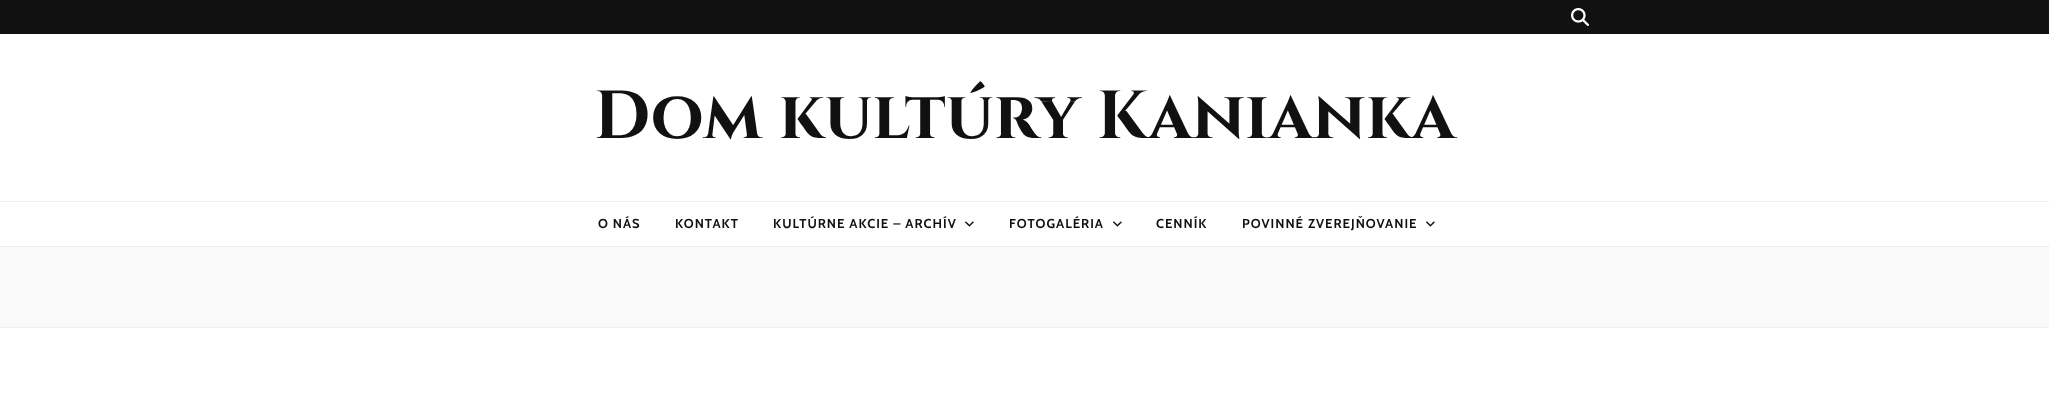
<!DOCTYPE html>
<meta charset="utf-8">
<style>body { margin: 0 } canvas { display: block }</style>
<canvas id="canvas" width="2049" height="413"></canvas>
<img id="img1" src="img_01.png" hidden>
<img id="img2" src="img_02.png" hidden>
<script>
window.onload = function () {
	const canvas = document.getElementById("canvas");
	const ctx = canvas.getContext("2d");
	ctx.miterLimit = 4;
	ctx.fontKerning = "normal";
	function txt(s, x, y) {
		ctx.fillText(s, x, y);
	}
	function fill(x, y, w, h) {
		ctx.fillRect(x, y, w, h);
	}
	function img(id, x, y, w, h) {
		ctx.drawImage(document.getElementById(id), x, y, w, h);
	}

	ctx.fillStyle = "#FFFFFF";
	fill(0, 0, 2049, 413);
	ctx.fillStyle = "#111111";
	fill(0, 0, 2049, 34);
	img("img1", 1571, 8, 18, 18);
	ctx.fillStyle = "#EEEEEE";
	fill(0, 201, 2049, 1);
	fill(0, 246, 2049, 1);
	img("img2", 965, 221, 9, 6);
	img("img2", 1113, 221, 9, 6);
	img("img2", 1426, 221, 9, 6);
	ctx.fillStyle = "#F9F9F9";
	fill(0, 247, 2049, 80);
	ctx.fillStyle = "#EEEEEE";
	fill(0, 327, 2049, 1);
	ctx.font = "bold 68px Cinzel";
	ctx.fillStyle = "#111111";
	txt("Dom kultúry Kanianka", 594, 138);
	ctx.letterSpacing = "1px";
	ctx.font = "bold 13px Cabin";
	txt("O NÁS", 598, 228);
	txt("KONTAKT", 675, 228);
	txt("KULTÚRNE AKCIE – ARCHÍV", 773, 228);
	txt("FOTOGALÉRIA", 1009, 228);
	txt("CENNÍK", 1156, 228);
	txt("POVINNÉ ZVEREJŇOVANIE", 1242, 228);
};
</script>
